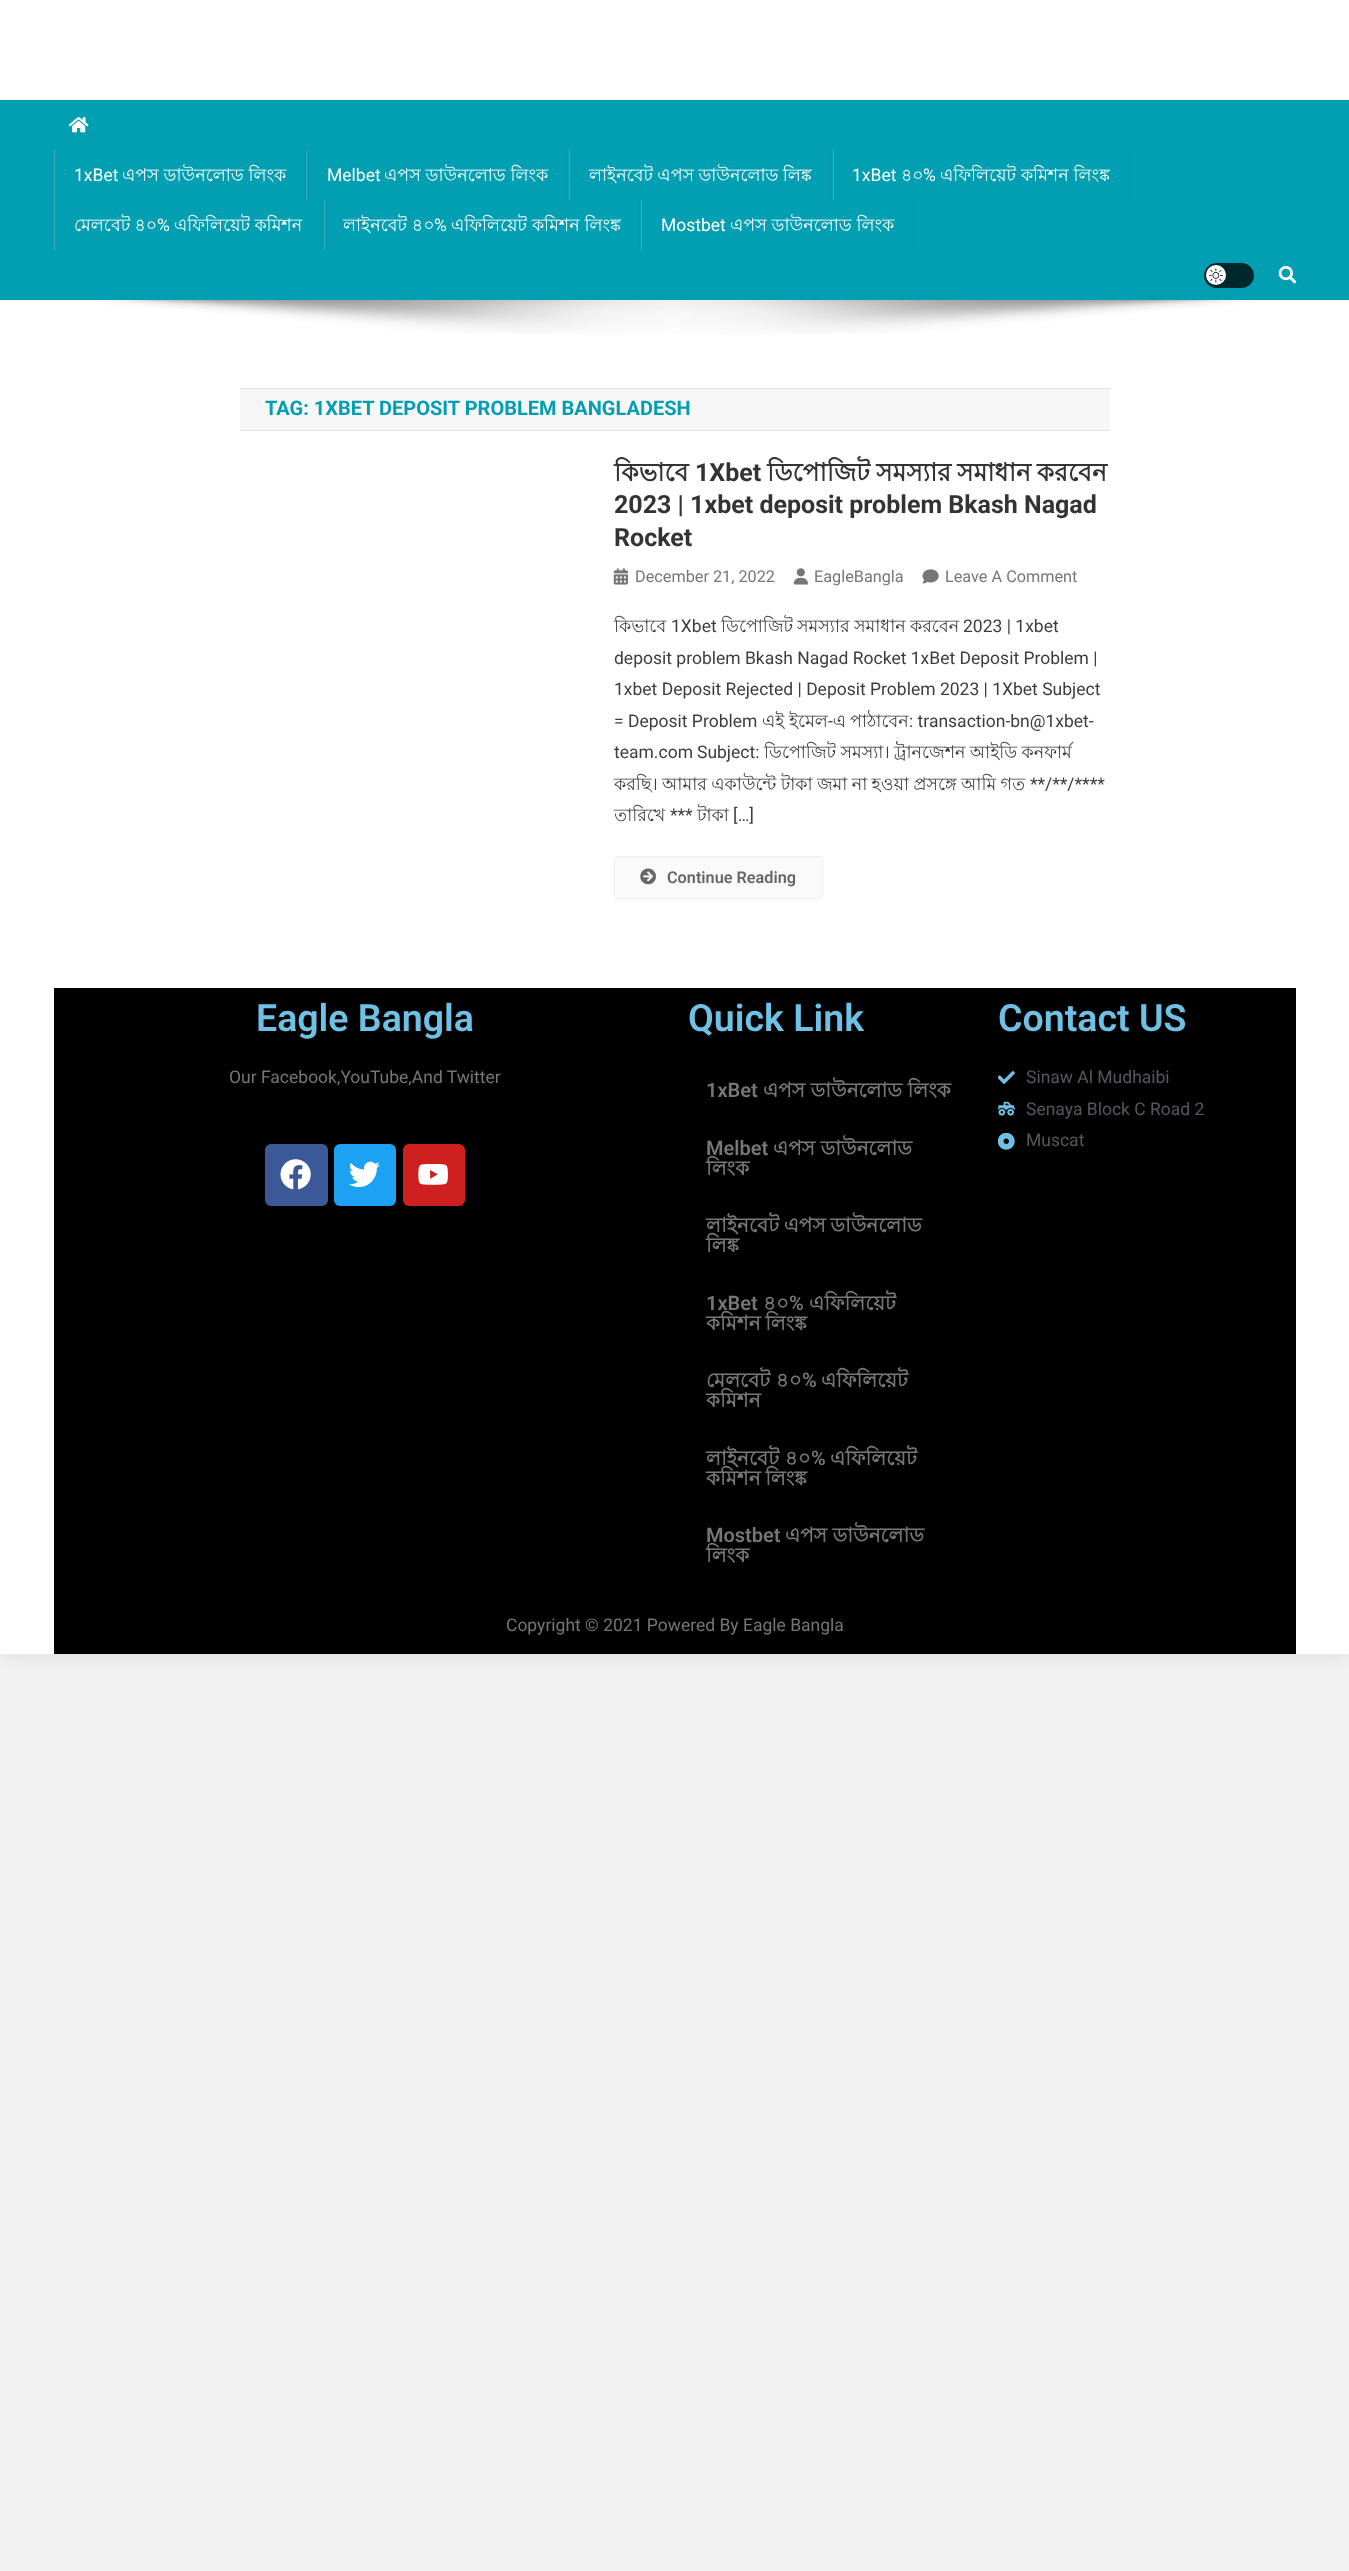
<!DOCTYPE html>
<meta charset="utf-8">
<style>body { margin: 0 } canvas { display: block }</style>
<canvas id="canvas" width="1349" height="2571"></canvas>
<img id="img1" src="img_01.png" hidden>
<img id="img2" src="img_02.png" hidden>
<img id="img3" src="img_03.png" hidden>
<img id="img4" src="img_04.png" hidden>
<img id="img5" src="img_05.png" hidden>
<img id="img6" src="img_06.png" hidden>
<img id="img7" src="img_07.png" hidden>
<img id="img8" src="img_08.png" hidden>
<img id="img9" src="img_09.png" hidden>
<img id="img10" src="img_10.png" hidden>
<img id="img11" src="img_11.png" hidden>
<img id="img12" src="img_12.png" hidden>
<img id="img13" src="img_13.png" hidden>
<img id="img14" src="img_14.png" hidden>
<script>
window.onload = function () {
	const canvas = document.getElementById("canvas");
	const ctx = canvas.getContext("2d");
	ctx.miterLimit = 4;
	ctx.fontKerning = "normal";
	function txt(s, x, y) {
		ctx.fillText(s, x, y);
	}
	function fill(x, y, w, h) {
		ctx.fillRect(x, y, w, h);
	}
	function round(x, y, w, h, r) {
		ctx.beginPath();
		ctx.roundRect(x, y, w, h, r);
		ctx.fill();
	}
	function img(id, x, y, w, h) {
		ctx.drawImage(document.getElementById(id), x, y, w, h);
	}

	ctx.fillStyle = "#F2F2F2";
	fill(0, 0, 1349, 2571);
	ctx.fillStyle = "rgba(0, 0, 0, 0.1)";
	ctx.filter = "blur(9.5px)";
	ctx.beginPath();
	ctx.rect(0, 0, 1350, 1654);
	ctx.fill();
	ctx.filter = "none";
	ctx.fillStyle = "#FFFFFF";
	fill(0, 0, 1349, 1654);
	ctx.fillStyle = "#029FB2";
	fill(0, 100, 1349, 200);
	img("img1", 68, 117, 21, 16);
	ctx.fillStyle = "#0292A4";
	fill(305, 150, 1, 50);
	ctx.fillStyle = "#35B2C1";
	fill(54, 150, 1, 100);
	ctx.fillStyle = "#0292A4";
	fill(566, 150, 1, 50);
	ctx.fillStyle = "#35B2C1";
	fill(306, 150, 1, 50);
	ctx.fillStyle = "#0292A4";
	fill(830, 150, 1, 50);
	ctx.fillStyle = "#35B2C1";
	fill(569, 150, 1, 50);
	ctx.fillStyle = "#0292A4";
	fill(1129, 150, 1, 50);
	ctx.fillStyle = "#35B2C1";
	fill(833, 150, 1, 50);
	ctx.fillStyle = "#0292A4";
	fill(321, 200, 1, 50);
	fill(639, 200, 1, 50);
	ctx.fillStyle = "#35B2C1";
	fill(324, 200, 1, 50);
	ctx.fillStyle = "#0292A4";
	fill(913, 200, 1, 50);
	ctx.fillStyle = "#35B2C1";
	fill(641, 200, 1, 50);
	ctx.fillStyle = "#01282D";
	round(1204, 263, 50, 25, 12.5);
	ctx.fillStyle = "#FFFFFF";
	ctx.beginPath();
	ctx.arc(1216, 275, 10, 0, Math.PI * 2);
	ctx.fill();
	img("img2", 1209, 268, 14, 15);
	img("img3", 1278, 265, 19, 19);
	img("img4", 96, 300, 1156, 34);
	ctx.fillStyle = "#F7F7F7";
	fill(240, 389, 870, 41);
	ctx.fillStyle = "#E1E1E1";
	fill(240, 388, 870, 1);
	fill(240, 430, 870, 1);
	img("img5", 613, 568, 15, 17);
	img("img6", 793, 568, 15, 17);
	img("img7", 922, 569, 17, 15);
	ctx.fillStyle = "#FAFAFA";
	ctx.beginPath();
	ctx.roundRect(614.5, 856.5, 208, 42, 3.5);
	ctx.fill();
	ctx.strokeStyle = "#EEEEEE";
	ctx.stroke();
	img("img8", 640, 868, 16, 17);
	ctx.fillStyle = "#000000";
	fill(54, 988, 1242, 666);
	ctx.fillStyle = "#3B5998";
	round(265, 1144, 63, 62, 6);
	img("img9", 280, 1159, 31, 31);
	ctx.fillStyle = "#1DA1F2";
	round(334, 1144, 62, 62, 6);
	img("img10", 349, 1161, 31, 27);
	ctx.fillStyle = "#CD201F";
	round(403, 1144, 62, 62, 6);
	img("img11", 418, 1163, 30, 22);
	img("img12", 998, 1071, 17, 13);
	img("img13", 998, 1101, 17, 15);
	img("img14", 998, 1133, 17, 17);
	ctx.font = "17.5px Roboto";
	ctx.fillStyle = "#FFFFFF";
	txt("1xBet", 74, 181);
	ctx.font = "17.5px Lohit Bengali";
	txt("এপস ডাউনলোড লিংক", 122, 181);
	ctx.font = "17.5px Roboto";
	txt("Melbet", 327, 181);
	ctx.font = "17.5px Lohit Bengali";
	txt("এপস ডাউনলোড লিংক", 384, 181);
	ctx.wordSpacing = "-0.5px";
	txt("লাইনবেট এপস ডাউনলোড লিঙ্ক", 589, 181);
	ctx.wordSpacing = "0px";
	ctx.font = "17.5px Roboto";
	txt("1xBet", 852, 181);
	ctx.font = "17.5px Lohit Bengali";
	txt("৪০", 901, 181);
	ctx.font = "17.5px Roboto";
	txt("%", 923, 181);
	ctx.font = "17.5px Lohit Bengali";
	txt("এফিলিয়েট কমিশন লিংঙ্ক", 940, 181);
	ctx.wordSpacing = "-0.5px";
	txt("মেলবেট ৪০", 74, 231);
	ctx.wordSpacing = "0px";
	ctx.font = "17.5px Roboto";
	txt("%", 157, 231);
	ctx.wordSpacing = "-0.5px";
	ctx.font = "17.5px Lohit Bengali";
	txt("এফিলিয়েট কমিশন", 174, 231);
	ctx.wordSpacing = "0px";
	txt("লাইনবেট ৪০", 343, 231);
	ctx.font = "17.5px Roboto";
	txt("%", 434, 231);
	ctx.font = "17.5px Lohit Bengali";
	txt("এফিলিয়েট কমিশন লিংঙ্ক", 451, 231);
	ctx.font = "17.5px Roboto";
	txt("Mostbet", 661, 231);
	ctx.font = "17.5px Lohit Bengali";
	txt("এপস ডাউনলোড লিংক", 730, 231);
	ctx.font = "bold 20px Roboto";
	ctx.fillStyle = "#029FB2";
	txt("TAG: 1XBET DEPOSIT PROBLEM BANGLADESH", 265, 415);
	ctx.font = "bold 25px Lohit Bengali";
	ctx.fillStyle = "#333333";
	txt("কিভাবে", 614, 481);
	ctx.font = "bold 25px Roboto";
	txt("1Xbet", 695, 481);
	ctx.wordSpacing = "-1px";
	ctx.font = "bold 25px Lohit Bengali";
	txt("ডিপোজিট সমস্যার সমাধান করবেন", 767, 481);
	ctx.wordSpacing = "0px";
	ctx.font = "bold 25px Roboto";
	txt("2023 | 1xbet deposit problem Bkash Nagad", 614, 513);
	txt("Rocket", 614, 546);
	ctx.font = "16.25px Roboto";
	ctx.fillStyle = "#767676";
	txt("December 21, 2022", 635, 582);
	txt("EagleBangla", 814, 582);
	txt("Leave A Comment", 945, 582);
	ctx.font = "17.5px Lohit Bengali";
	ctx.fillStyle = "#3D3D3D";
	txt("কিভাবে", 614, 632);
	ctx.font = "17.5px Roboto";
	txt("1Xbet", 671, 632);
	ctx.font = "17.5px Lohit Bengali";
	txt("ডিপোজিট", 721, 632);
	txt("সমস্যার", 797, 632);
	txt("সমাধান", 854, 632);
	txt("করবেন", 910, 632);
	ctx.font = "17.5px Roboto";
	txt("2023 | 1xbet", 963, 632);
	txt("deposit problem Bkash Nagad Rocket 1xBet Deposit Problem |", 614, 664);
	txt("1xbet Deposit Rejected | Deposit Problem 2023 | 1Xbet Subject", 614, 695);
	txt("= Deposit Problem", 614, 727);
	ctx.font = "17.5px Lohit Bengali";
	txt("এই", 762, 727);
	txt("ইমেল এ", 789, 727);
	txt("পাঠাবেন", 850, 727);
	ctx.font = "17.5px Roboto";
	txt(": transaction-bn@1xbet-", 909, 727);
	txt("-", 828, 727);
	txt("team.com", 614, 758);
	txt("Subject:", 697, 758);
	ctx.wordSpacing = "-0.5px";
	ctx.font = "17.5px Lohit Bengali";
	txt("ডিপোজিট সমস্যা। ট্রানজেশন আইডি কনফার্ম", 764, 758);
	txt("করছি। আমার একাউন্টে টাকা জমা না হওয়া প্রসঙ্গে আমি গত", 614, 790);
	ctx.wordSpacing = "0px";
	ctx.font = "17.5px Roboto";
	txt("**/**/****", 1030, 790);
	ctx.font = "17.5px Lohit Bengali";
	txt("তারিখে", 614, 821);
	ctx.font = "17.5px Roboto";
	txt("***", 670, 821);
	ctx.font = "17.5px Lohit Bengali";
	txt("টাকা", 697, 821);
	ctx.font = "17.5px Roboto";
	txt("[…]", 733, 821);
	ctx.font = "600 16.25px Roboto";
	ctx.fillStyle = "#666666";
	txt("Continue Reading", 667, 883);
	ctx.font = "600 37.5px Roboto";
	ctx.fillStyle = "#6EC1E4";
	txt("Eagle Bangla", 256, 1031);
	ctx.font = "17.5px Roboto";
	ctx.fillStyle = "#767676";
	txt("Our Facebook,YouTube,And Twitter", 229, 1083);
	ctx.font = "600 37.5px Roboto";
	ctx.fillStyle = "#6EC1E4";
	txt("Quick Link", 688, 1031);
	ctx.font = "600 20px Roboto";
	ctx.fillStyle = "#767676";
	txt("1xBet", 706, 1097);
	ctx.font = "bold 20px Lohit Bengali";
	txt("এপস ডাউনলোড লিংক", 763, 1097);
	ctx.font = "600 20px Roboto";
	txt("Melbet", 706, 1155);
	ctx.font = "bold 20px Lohit Bengali";
	txt("এপস ডাউনলোড", 773, 1155);
	txt("লিংক", 706, 1175);
	ctx.wordSpacing = "-1px";
	txt("লাইনবেট এপস ডাউনলোড", 706, 1232);
	ctx.wordSpacing = "0px";
	txt("লিঙ্ক", 706, 1252);
	ctx.font = "600 20px Roboto";
	txt("1xBet", 706, 1310);
	ctx.font = "bold 20px Lohit Bengali";
	txt("৪০", 763, 1310);
	ctx.font = "600 20px Roboto";
	txt("%", 789, 1310);
	ctx.font = "bold 20px Lohit Bengali";
	txt("এফিলিয়েট", 809, 1310);
	ctx.wordSpacing = "-1px";
	txt("কমিশন লিংঙ্ক", 706, 1330);
	ctx.wordSpacing = "0px";
	txt("মেলবেট ৪০", 706, 1387);
	ctx.font = "600 20px Roboto";
	txt("%", 802, 1387);
	ctx.font = "bold 20px Lohit Bengali";
	txt("এফিলিয়েট", 821, 1387);
	txt("কমিশন", 706, 1407);
	txt("লাইনবেট ৪০", 706, 1465);
	ctx.font = "600 20px Roboto";
	txt("%", 811, 1465);
	ctx.font = "bold 20px Lohit Bengali";
	txt("এফিলিয়েট", 830, 1465);
	ctx.wordSpacing = "-1px";
	txt("কমিশন লিংঙ্ক", 706, 1485);
	ctx.wordSpacing = "0px";
	ctx.font = "600 20px Roboto";
	txt("Mostbet", 706, 1542);
	ctx.font = "bold 20px Lohit Bengali";
	txt("এপস ডাউনলোড", 785, 1542);
	txt("লিংক", 706, 1562);
	ctx.font = "600 37.5px Roboto";
	ctx.fillStyle = "#6EC1E4";
	txt("Contact US", 998, 1031);
	ctx.font = "17.5px Roboto";
	ctx.fillStyle = "#54595F";
	txt("Sinaw Al Mudhaibi", 1026, 1083);
	txt("Senaya Block C Road 2", 1026, 1115);
	txt("Muscat", 1026, 1146);
	ctx.fillStyle = "#767676";
	txt("Copyright © 2021 Powered By Eagle Bangla", 506, 1631);
};
</script>
